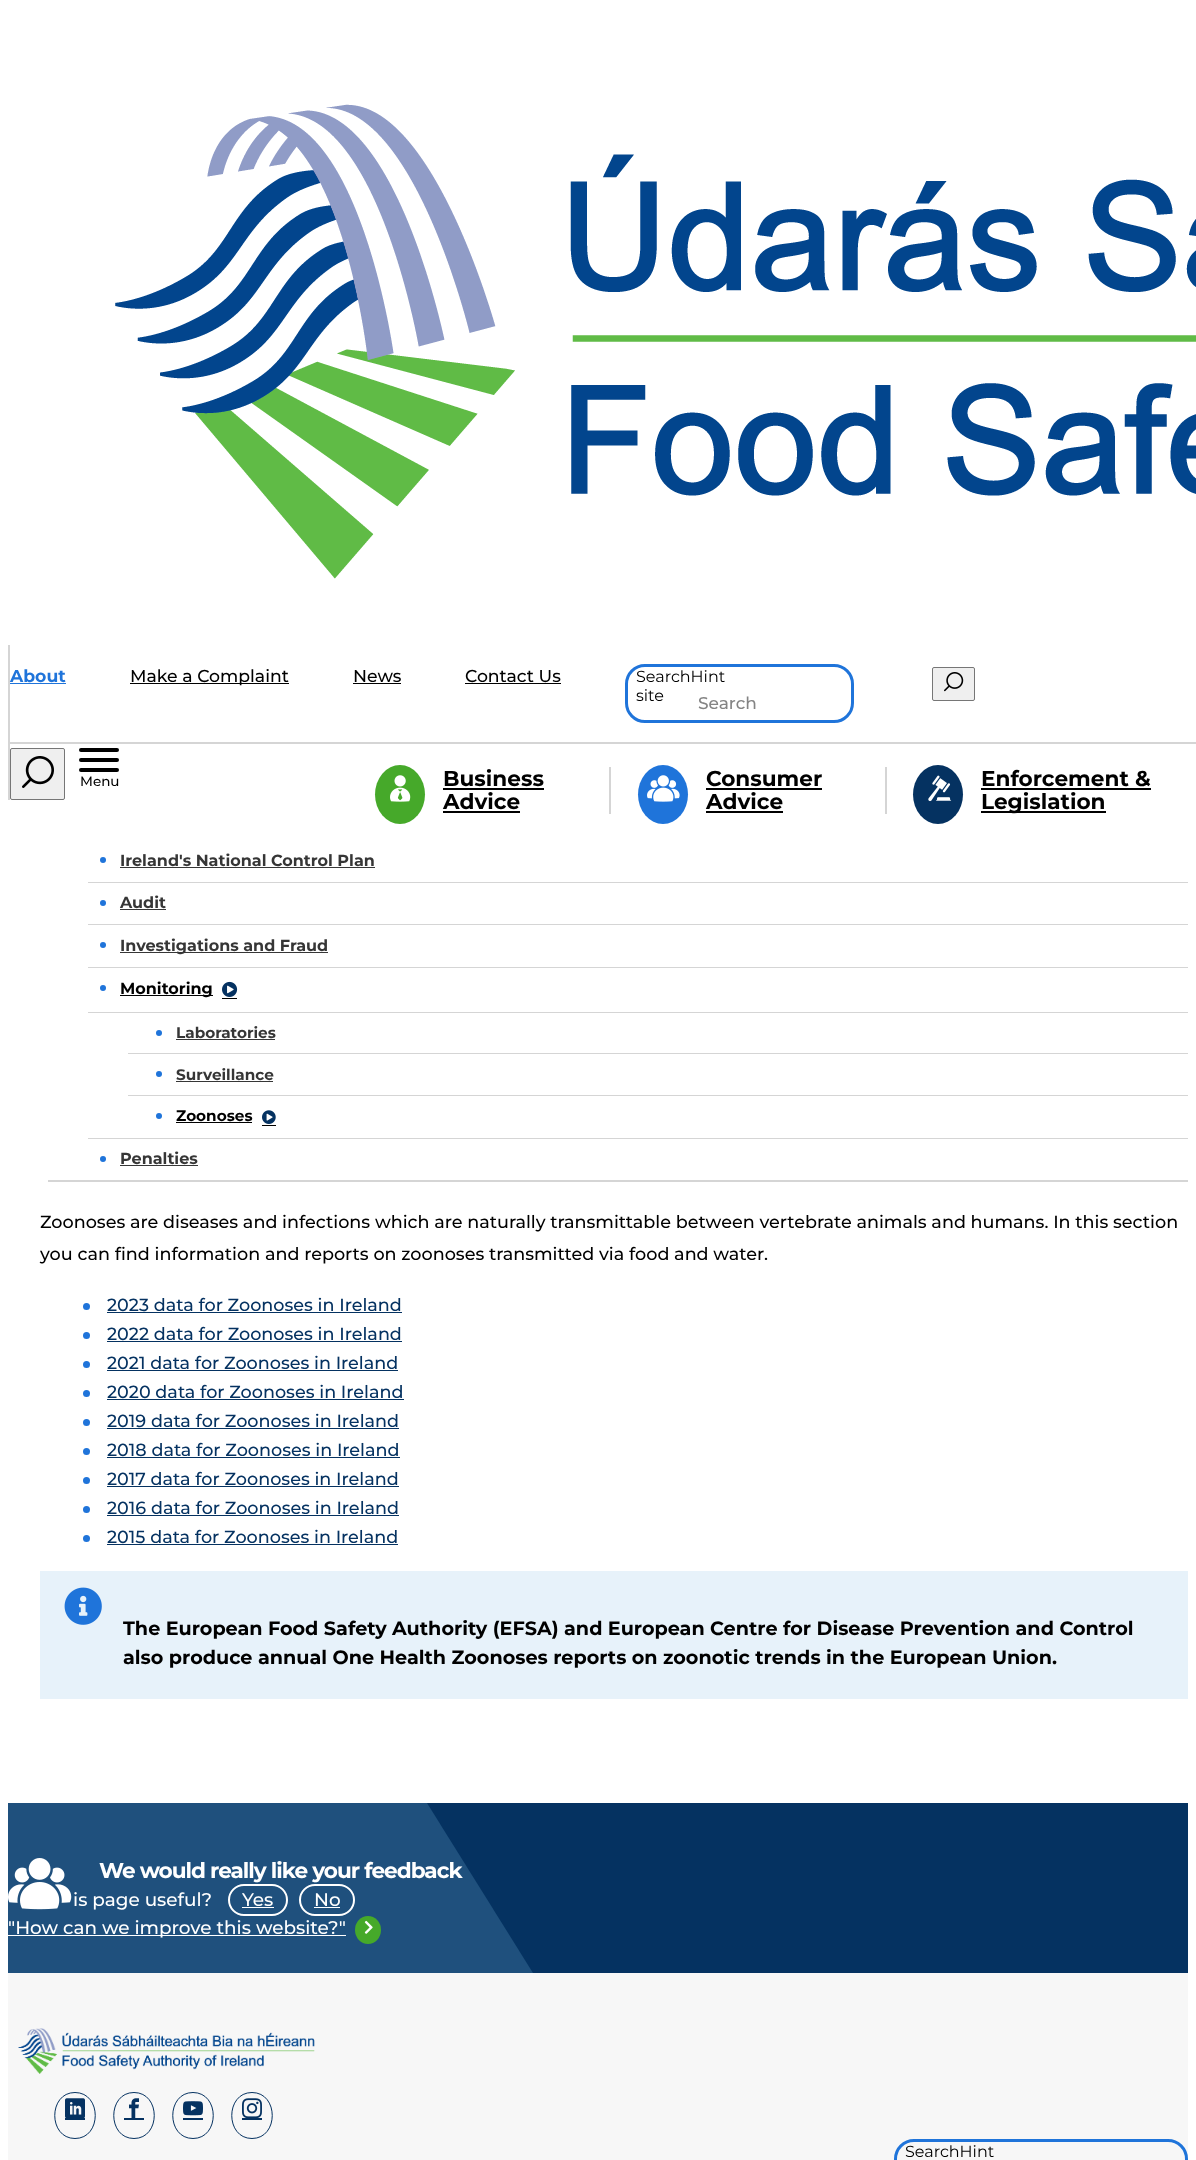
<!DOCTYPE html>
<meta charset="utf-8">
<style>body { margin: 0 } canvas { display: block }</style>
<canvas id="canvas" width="1196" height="2160"></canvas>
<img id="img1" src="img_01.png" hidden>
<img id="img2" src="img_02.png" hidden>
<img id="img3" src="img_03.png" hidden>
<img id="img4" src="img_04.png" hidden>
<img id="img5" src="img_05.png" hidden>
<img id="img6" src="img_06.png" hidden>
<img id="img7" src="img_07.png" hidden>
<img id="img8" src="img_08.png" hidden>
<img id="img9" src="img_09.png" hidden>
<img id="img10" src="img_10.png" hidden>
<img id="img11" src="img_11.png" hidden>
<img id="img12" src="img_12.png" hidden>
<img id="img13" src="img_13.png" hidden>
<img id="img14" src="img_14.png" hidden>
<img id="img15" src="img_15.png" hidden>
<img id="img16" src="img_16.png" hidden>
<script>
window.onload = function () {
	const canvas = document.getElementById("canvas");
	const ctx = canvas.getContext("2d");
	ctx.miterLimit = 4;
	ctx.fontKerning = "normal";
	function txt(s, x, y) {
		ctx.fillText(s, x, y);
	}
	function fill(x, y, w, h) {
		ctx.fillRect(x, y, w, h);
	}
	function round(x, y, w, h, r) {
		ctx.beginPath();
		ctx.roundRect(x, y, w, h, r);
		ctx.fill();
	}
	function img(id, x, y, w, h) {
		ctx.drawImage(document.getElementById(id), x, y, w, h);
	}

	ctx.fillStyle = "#FFFFFF";
	fill(0, 0, 1196, 2160);
	img("img1", 115, 104, 1081, 475);
	ctx.fillStyle = "#D5D5D5";
	fill(8, 645, 2, 155);
	fill(10, 742, 1186, 2);
	ctx.fillStyle = "#1F74DA";
	fill(10, 683, 56, 1);
	ctx.fillStyle = "#000000";
	fill(130, 683, 159, 1);
	fill(353, 683, 48, 1);
	fill(465, 683, 96, 1);
	ctx.beginPath();
	ctx.roundRect(626.5, 665.5, 226, 56, 18.5);
	ctx.strokeStyle = "#1F74DA";
	ctx.lineWidth = 3;
	ctx.stroke();
	ctx.fillStyle = "#EFEFEF";
	ctx.beginPath();
	ctx.roundRect(932.5, 667.5, 42, 33, 1.5);
	ctx.fill();
	ctx.strokeStyle = "#767676";
	ctx.lineWidth = 1;
	ctx.stroke();
	img("img2", 944, 672, 20, 20);
	ctx.beginPath();
	ctx.roundRect(10.5, 748.5, 54, 51, 1.5);
	ctx.fill();
	ctx.stroke();
	img("img3", 22, 756, 32, 32);
	ctx.fillStyle = "#000000";
	round(79, 748, 40, 4, 2);
	round(79, 758, 40, 4, 2);
	round(79, 768, 40, 4, 2);
	ctx.fillStyle = "#46A92A";
	ctx.beginPath();
	ctx.ellipse(400, 794.5, 25, 29.5, 0, 0, Math.PI * 2);
	ctx.fill();
	img("img4", 390, 775, 21, 27);
	ctx.fillStyle = "#000000";
	fill(443, 788, 101, 2);
	fill(443, 811, 77, 2);
	ctx.fillStyle = "#D5D5D5";
	fill(609, 767, 2, 47);
	ctx.fillStyle = "#1F74DA";
	ctx.beginPath();
	ctx.ellipse(663, 794.5, 25, 29.5, 0, 0, Math.PI * 2);
	ctx.fill();
	img("img5", 647, 775, 33, 27);
	ctx.fillStyle = "#000000";
	fill(706, 788, 116, 2);
	fill(706, 811, 77, 2);
	ctx.fillStyle = "#D5D5D5";
	fill(885, 767, 2, 47);
	ctx.fillStyle = "#053261";
	ctx.beginPath();
	ctx.ellipse(938, 794.5, 25, 29.5, 0, 0, Math.PI * 2);
	ctx.fill();
	img("img6", 928, 775, 24, 27);
	ctx.fillStyle = "#000000";
	fill(981, 788, 170, 2);
	fill(981, 811, 125, 2);
	ctx.fillStyle = "#D5D5D5";
	fill(48, 1180, 1140, 2);
	fill(88, 882, 1100, 1);
	ctx.fillStyle = "#1F74DA";
	ctx.beginPath();
	ctx.arc(103, 860, 3, 0, Math.PI * 2);
	ctx.fill();
	ctx.fillStyle = "#363636";
	fill(120, 867, 255, 1);
	ctx.fillStyle = "#D5D5D5";
	fill(88, 924, 1100, 1);
	ctx.fillStyle = "#1F74DA";
	ctx.beginPath();
	ctx.arc(103, 903, 3, 0, Math.PI * 2);
	ctx.fill();
	ctx.fillStyle = "#363636";
	fill(120, 909, 46, 1);
	ctx.fillStyle = "#D5D5D5";
	fill(88, 967, 1100, 1);
	ctx.fillStyle = "#1F74DA";
	ctx.beginPath();
	ctx.arc(103, 945, 3, 0, Math.PI * 2);
	ctx.fill();
	ctx.fillStyle = "#363636";
	fill(120, 952, 208, 1);
	ctx.fillStyle = "#D5D5D5";
	fill(88, 1138, 1100, 1);
	ctx.fillStyle = "#1F74DA";
	ctx.beginPath();
	ctx.arc(103, 988, 3, 0, Math.PI * 2);
	ctx.fill();
	ctx.fillStyle = "#000000";
	fill(120, 995, 93, 1);
	img("img7", 222, 981, 16, 16);
	fill(222, 998, 15, 1);
	ctx.fillStyle = "#D5D5D5";
	fill(88, 1012, 1100, 1);
	fill(128, 1053, 1060, 1);
	ctx.fillStyle = "#1F74DA";
	ctx.beginPath();
	ctx.arc(159, 1033, 3, 0, Math.PI * 2);
	ctx.fill();
	ctx.fillStyle = "#363636";
	fill(176, 1039, 99, 1);
	ctx.fillStyle = "#D5D5D5";
	fill(128, 1095, 1060, 1);
	ctx.fillStyle = "#1F74DA";
	ctx.beginPath();
	ctx.arc(159, 1074, 3, 0, Math.PI * 2);
	ctx.fill();
	ctx.fillStyle = "#363636";
	fill(176, 1081, 97, 1);
	ctx.fillStyle = "#1F74DA";
	ctx.beginPath();
	ctx.arc(159, 1116, 3, 0, Math.PI * 2);
	ctx.fill();
	ctx.fillStyle = "#000000";
	fill(176, 1122, 76, 1);
	img("img8", 262, 1110, 14, 14);
	fill(262, 1125, 14, 1);
	ctx.fillStyle = "#1F74DA";
	ctx.beginPath();
	ctx.arc(103, 1159, 3, 0, Math.PI * 2);
	ctx.fill();
	ctx.fillStyle = "#363636";
	fill(120, 1165, 78, 1);
	ctx.fillStyle = "#1F74DA";
	ctx.beginPath();
	ctx.arc(86.5, 1306.5, 3.5, 0, Math.PI * 2);
	ctx.fill();
	ctx.fillStyle = "#053261";
	fill(107, 1312, 295, 1);
	ctx.fillStyle = "#1F74DA";
	ctx.beginPath();
	ctx.arc(86.5, 1335.5, 3.5, 0, Math.PI * 2);
	ctx.fill();
	ctx.fillStyle = "#053261";
	fill(107, 1341, 295, 1);
	ctx.fillStyle = "#1F74DA";
	ctx.beginPath();
	ctx.arc(86.5, 1364.5, 3.5, 0, Math.PI * 2);
	ctx.fill();
	ctx.fillStyle = "#053261";
	fill(107, 1370, 291, 1);
	ctx.fillStyle = "#1F74DA";
	ctx.beginPath();
	ctx.arc(86.5, 1393.5, 3.5, 0, Math.PI * 2);
	ctx.fill();
	ctx.fillStyle = "#053261";
	fill(107, 1399, 297, 1);
	ctx.fillStyle = "#1F74DA";
	ctx.beginPath();
	ctx.arc(86.5, 1422.5, 3.5, 0, Math.PI * 2);
	ctx.fill();
	ctx.fillStyle = "#053261";
	fill(107, 1428, 292, 1);
	ctx.fillStyle = "#1F74DA";
	ctx.beginPath();
	ctx.arc(86.5, 1451.5, 3.5, 0, Math.PI * 2);
	ctx.fill();
	ctx.fillStyle = "#053261";
	fill(107, 1457, 293, 1);
	ctx.fillStyle = "#1F74DA";
	ctx.beginPath();
	ctx.arc(86.5, 1480.5, 3.5, 0, Math.PI * 2);
	ctx.fill();
	ctx.fillStyle = "#053261";
	fill(107, 1486, 292, 1);
	ctx.fillStyle = "#1F74DA";
	ctx.beginPath();
	ctx.arc(86.5, 1509.5, 3.5, 0, Math.PI * 2);
	ctx.fill();
	ctx.fillStyle = "#053261";
	fill(107, 1515, 292, 1);
	ctx.fillStyle = "#1F74DA";
	ctx.beginPath();
	ctx.arc(86.5, 1538.5, 3.5, 0, Math.PI * 2);
	ctx.fill();
	ctx.fillStyle = "#053261";
	fill(107, 1544, 291, 1);
	ctx.fillStyle = "#E7F2FA";
	fill(40, 1571, 1148, 128);
	img("img9", 64, 1587, 38, 38);
	ctx.fillStyle = "#053261";
	fill(427, 1803, 761, 170);
	ctx.save();
	ctx.beginPath();
	ctx.rect(8, 1803, 1180, 170);
	ctx.clip();
	ctx.fillStyle = "#1F507D";
	ctx.beginPath();
	ctx.moveTo(-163, 1803);
	ctx.lineTo(427, 1803);
	ctx.lineTo(533, 1973);
	ctx.lineTo(-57, 1973);
	ctx.closePath();
	ctx.fill();
	ctx.restore();
	img("img10", 8, 1858, 64, 52);
	ctx.beginPath();
	ctx.roundRect(229, 1885, 58, 30, 15);
	ctx.strokeStyle = "#FFFFFF";
	ctx.lineWidth = 2;
	ctx.stroke();
	ctx.fillStyle = "#FFFFFF";
	fill(242, 1907, 32, 1);
	ctx.beginPath();
	ctx.roundRect(300, 1885, 54, 30, 15);
	ctx.stroke();
	fill(314, 1907, 26, 1);
	fill(8, 1935, 338, 1);
	ctx.fillStyle = "#46A92A";
	ctx.beginPath();
	ctx.ellipse(368, 1930, 13, 14, 0, 0, Math.PI * 2);
	ctx.fill();
	img("img11", 364, 1920, 9, 14);
	ctx.fillStyle = "#F7F7F7";
	fill(8, 1973, 1180, 187);
	img("img12", 18, 2028, 297, 46);
	ctx.beginPath();
	ctx.moveTo(75, 2092.5);
	ctx.bezierCurveTo(102, 2092.5, 102, 2138.5, 75, 2138.5);
	ctx.bezierCurveTo(48, 2138.5, 48, 2092.5, 75, 2092.5);
	ctx.closePath();
	ctx.strokeStyle = "#053261";
	ctx.lineWidth = 1;
	ctx.stroke();
	img("img13", 65, 2098, 20, 20);
	ctx.fillStyle = "#053261";
	fill(65, 2118, 20, 2);
	ctx.beginPath();
	ctx.moveTo(134, 2092.5);
	ctx.bezierCurveTo(161, 2092.5, 161, 2138.5, 134, 2138.5);
	ctx.bezierCurveTo(107, 2138.5, 107, 2092.5, 134, 2092.5);
	ctx.closePath();
	ctx.stroke();
	img("img14", 129, 2098, 10, 20);
	fill(124, 2118, 20, 2);
	ctx.beginPath();
	ctx.moveTo(193, 2092.5);
	ctx.bezierCurveTo(220, 2092.5, 220, 2138.5, 193, 2138.5);
	ctx.bezierCurveTo(166, 2138.5, 166, 2092.5, 193, 2092.5);
	ctx.closePath();
	ctx.stroke();
	img("img15", 183, 2101, 20, 15);
	fill(183, 2118, 20, 2);
	ctx.beginPath();
	ctx.moveTo(252, 2092.5);
	ctx.bezierCurveTo(279, 2092.5, 279, 2138.5, 252, 2138.5);
	ctx.bezierCurveTo(225, 2138.5, 225, 2092.5, 252, 2092.5);
	ctx.closePath();
	ctx.stroke();
	img("img16", 242, 2098, 20, 20);
	fill(242, 2118, 20, 2);
	ctx.beginPath();
	ctx.roundRect(895.5, 2140.5, 291, 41, 18.5);
	ctx.strokeStyle = "#1F74DA";
	ctx.lineWidth = 3;
	ctx.stroke();
	ctx.font = "bold 17.25px Montserrat";
	ctx.fillStyle = "#1F74DA";
	txt("About", 10, 682);
	ctx.font = "500 17.25px Montserrat";
	ctx.fillStyle = "#000000";
	txt("Make a Complaint", 130, 682);
	txt("News", 353, 682);
	txt("Contact Us", 465, 682);
	ctx.font = "16px Montserrat";
	txt("SearchHint", 636, 682);
	txt("site", 636, 701);
	ctx.font = "500 17px Montserrat";
	ctx.fillStyle = "#848484";
	txt("Search", 698, 709);
	ctx.font = "500 13.5px Montserrat";
	ctx.fillStyle = "#000000";
	txt("Menu", 80, 786);
	ctx.font = "bold 21.6px Montserrat";
	txt("Business", 443, 786);
	txt("Advice", 443, 809);
	txt("Consumer", 706, 786);
	txt("Advice", 706, 809);
	txt("Enforcement &", 981, 786);
	txt("Legislation", 981, 809);
	ctx.font = "bold 16px Montserrat";
	ctx.fillStyle = "#363636";
	txt("Ireland's National Control Plan", 120, 866);
	txt("Audit", 120, 908);
	txt("Investigations and Fraud", 120, 951);
	ctx.fillStyle = "#000000";
	txt("Monitoring", 120, 994);
	ctx.font = "bold 15.25px Montserrat";
	ctx.fillStyle = "#363636";
	txt("Laboratories", 176, 1038);
	txt("Surveillance", 176, 1080);
	ctx.fillStyle = "#000000";
	txt("Zoonoses", 176, 1121);
	ctx.font = "bold 16px Montserrat";
	ctx.fillStyle = "#363636";
	txt("Penalties", 120, 1164);
	ctx.font = "500 17.6px Montserrat";
	ctx.fillStyle = "#000000";
	txt("Zoonoses are diseases and infections which are naturally transmittable between vertebrate animals and humans. In this section", 40, 1228);
	txt("you can find information and reports on zoonoses transmitted via food and water.", 40, 1260);
	ctx.fillStyle = "#053261";
	txt("2023 data for Zoonoses in Ireland", 107, 1311);
	txt("2022 data for Zoonoses in Ireland", 107, 1340);
	txt("2021 data for Zoonoses in Ireland", 107, 1369);
	txt("2020 data for Zoonoses in Ireland", 107, 1398);
	txt("2019 data for Zoonoses in Ireland", 107, 1427);
	txt("2018 data for Zoonoses in Ireland", 107, 1456);
	txt("2017 data for Zoonoses in Ireland", 107, 1485);
	txt("2016 data for Zoonoses in Ireland", 107, 1514);
	txt("2015 data for Zoonoses in Ireland", 107, 1543);
	ctx.font = "bold 19.2px Montserrat";
	ctx.fillStyle = "#000000";
	txt("The European Food Safety Authority (EFSA) and European Centre for Disease Prevention and Control", 123, 1635);
	txt("also produce annual One Health Zoonoses reports on zoonotic trends in the European Union.", 123, 1664);
	ctx.letterSpacing = "-1px";
	ctx.font = "bold 21.6px Montserrat";
	ctx.fillStyle = "#FFFFFF";
	txt("We would really like your feedback", 99, 1878);
	ctx.letterSpacing = "0px";
	ctx.font = "500 18.4px Montserrat";
	txt("is page useful?", 73, 1906);
	txt("Yes", 242, 1906);
	txt("No", 314, 1906);
	txt("\"How can we improve this website?\"", 8, 1934);
	ctx.font = "16px Montserrat";
	ctx.fillStyle = "#000000";
	txt("SearchHint", 905, 2157);
};
</script>
